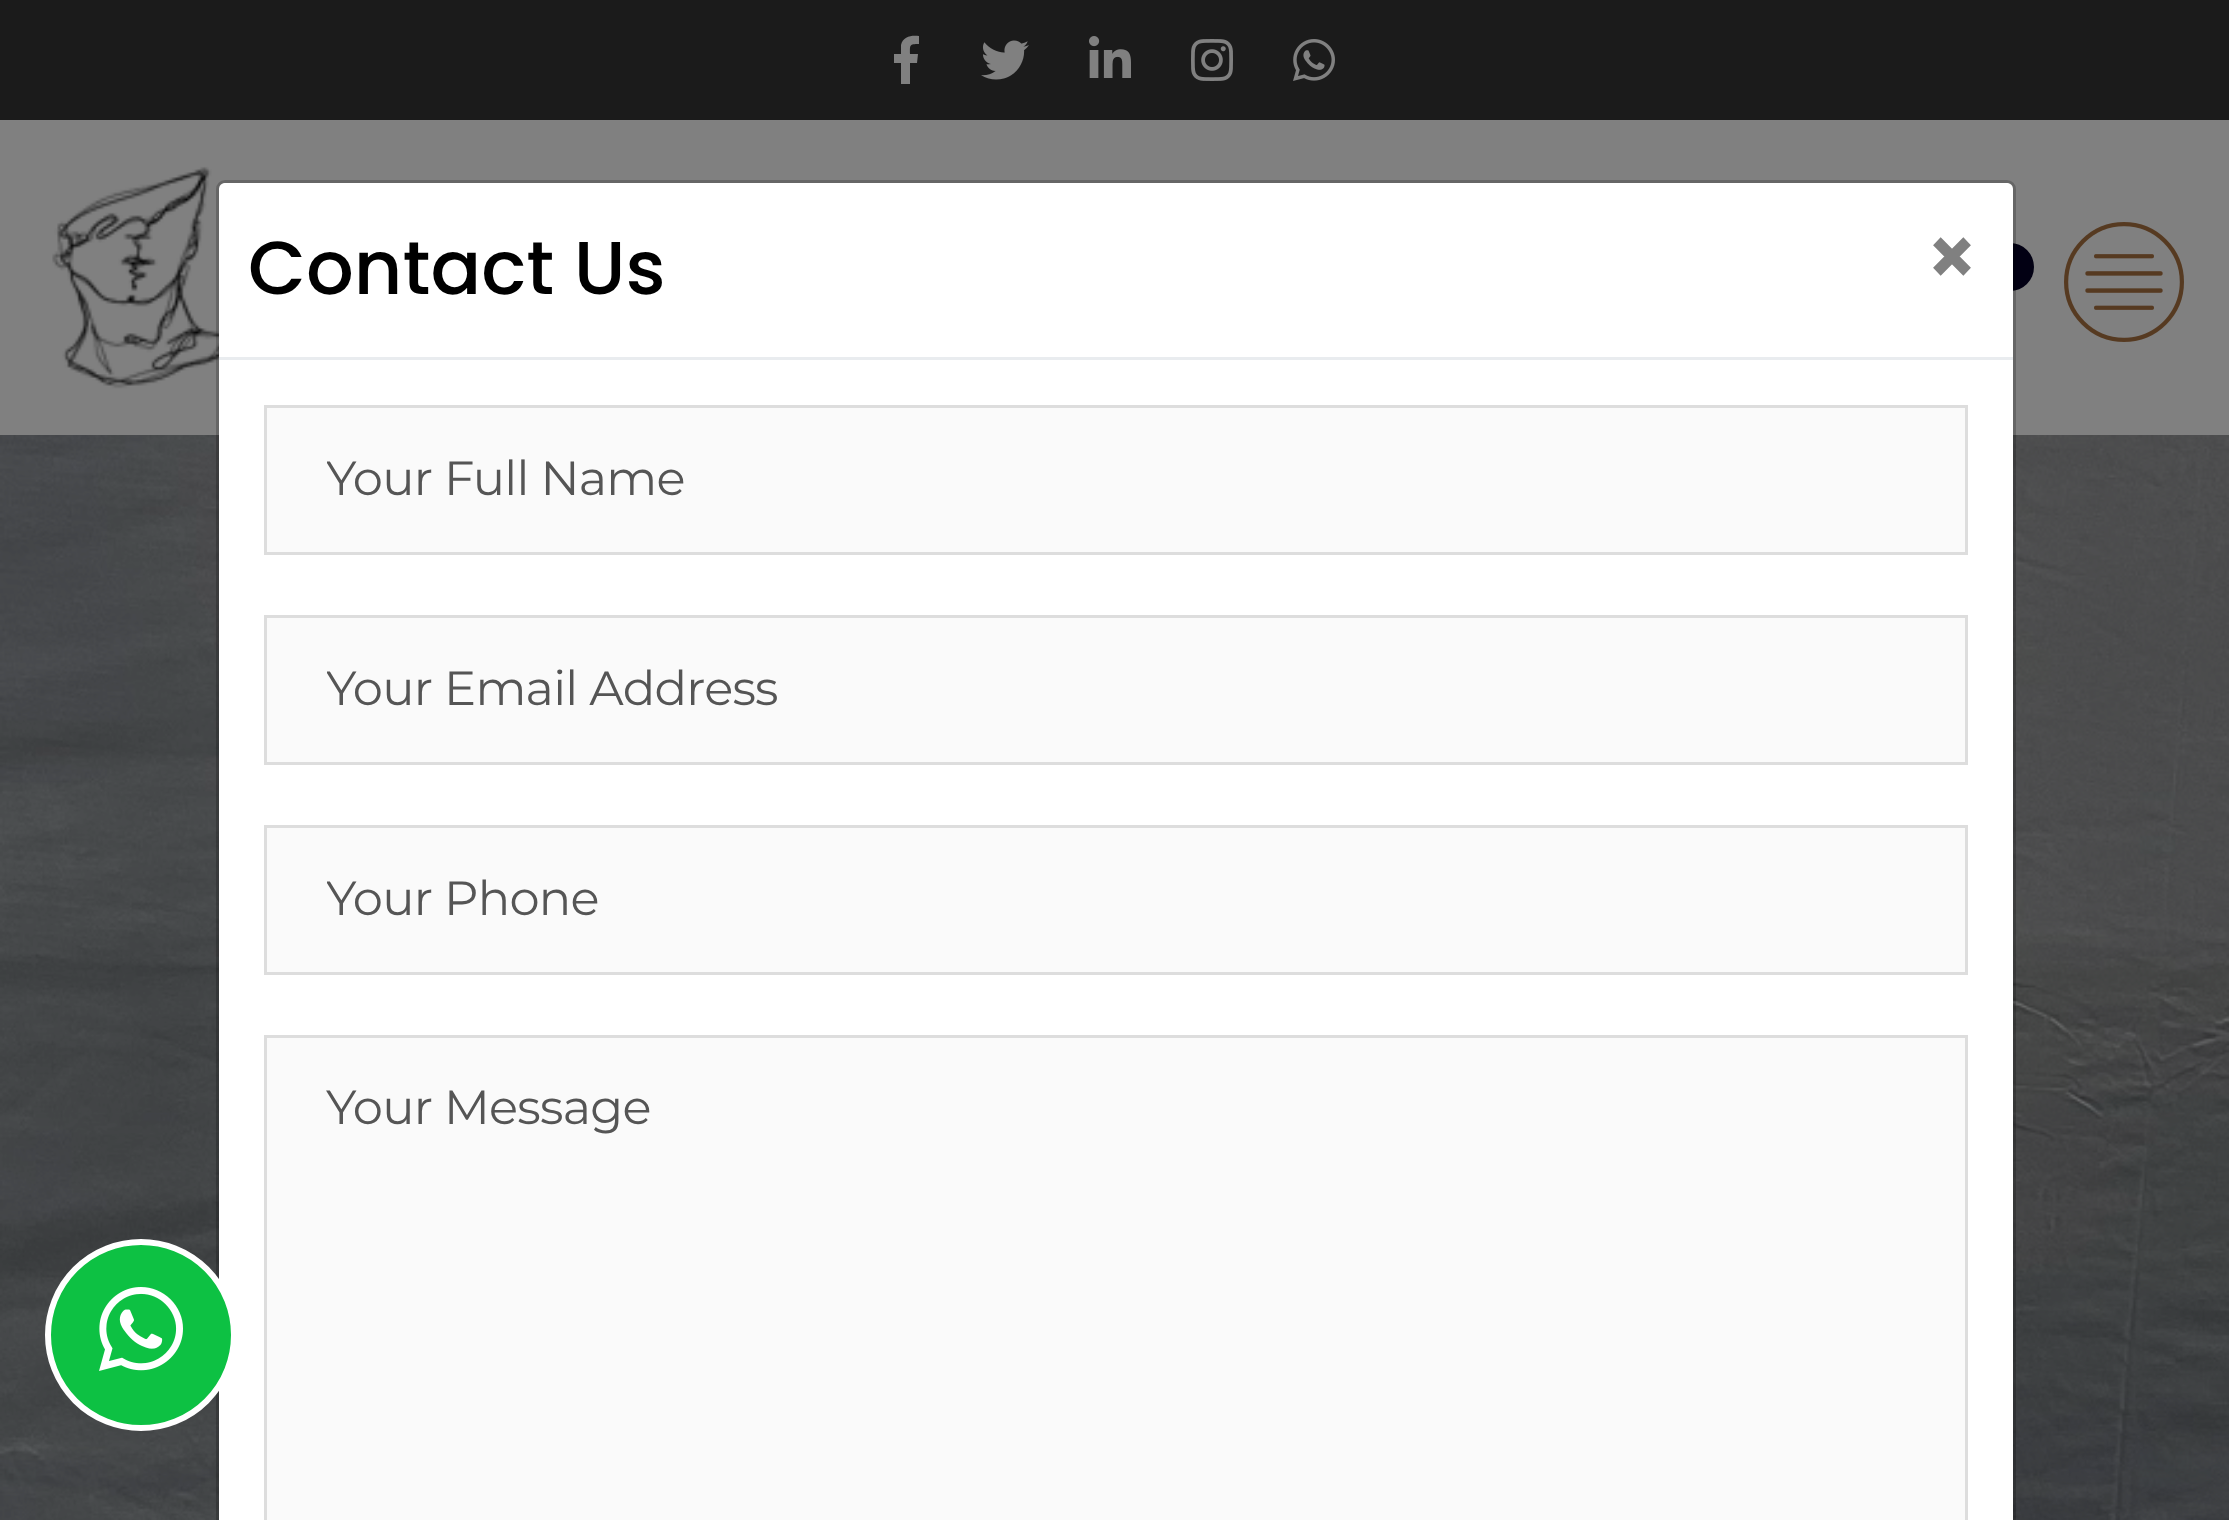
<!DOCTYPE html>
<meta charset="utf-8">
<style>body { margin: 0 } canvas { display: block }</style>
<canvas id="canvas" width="2229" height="1520"></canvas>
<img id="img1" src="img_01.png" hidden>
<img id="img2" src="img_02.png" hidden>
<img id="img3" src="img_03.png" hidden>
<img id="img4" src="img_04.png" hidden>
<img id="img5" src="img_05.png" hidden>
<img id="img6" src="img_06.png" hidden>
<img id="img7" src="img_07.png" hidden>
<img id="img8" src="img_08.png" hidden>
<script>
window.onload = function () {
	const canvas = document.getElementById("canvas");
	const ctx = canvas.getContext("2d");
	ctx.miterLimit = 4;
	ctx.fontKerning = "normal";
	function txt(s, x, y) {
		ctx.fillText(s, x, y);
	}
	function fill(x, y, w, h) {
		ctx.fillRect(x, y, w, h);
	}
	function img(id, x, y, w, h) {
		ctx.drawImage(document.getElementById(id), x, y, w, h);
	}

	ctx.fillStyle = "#FFFFFF";
	fill(0, 0, 2229, 1520);
	ctx.fillStyle = "#1B1B1B";
	fill(0, 0, 2229, 120);
	ctx.fillStyle = "#808080";
	ctx.beginPath();
	ctx.moveTo(901, 84);
	ctx.lineTo(901, 63);
	ctx.lineTo(894, 63);
	ctx.lineTo(894, 54);
	ctx.lineTo(901, 54);
	ctx.lineTo(901, 45);
	ctx.bezierCurveTo(903, 36, 912, 35, 919, 36);
	ctx.lineTo(919, 44);
	ctx.bezierCurveTo(909, 44, 910, 45, 910, 54);
	ctx.lineTo(918, 54);
	ctx.lineTo(917, 63);
	ctx.lineTo(910, 63);
	ctx.lineTo(910, 84);
	ctx.closePath();
	ctx.fill();
	img("img1", 981, 40, 48, 40);
	img("img2", 1089, 36, 42, 42);
	img("img3", 1191, 39, 42, 42);
	img("img4", 1293, 39, 42, 42);
	fill(0, 120, 2229, 315);
	img("img5", 52, 166, 446, 223);
	ctx.fillStyle = "#020013";
	ctx.beginPath();
	ctx.arc(2010, 267, 24, 0, Math.PI * 2);
	ctx.fill();
	img("img6", 2064, 222, 120, 120);
	img("img7", 0, 435, 2229, 1085);
	ctx.fillStyle = "#FFFFFF";
	ctx.beginPath();
	ctx.moveTo(225, 183);
	ctx.lineTo(2007, 183);
	ctx.bezierCurveTo(2010.5, 183, 2013, 185.5, 2013, 189);
	ctx.lineTo(2013, 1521);
	ctx.lineTo(219, 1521);
	ctx.lineTo(219, 189);
	ctx.bezierCurveTo(219, 185.5, 221.5, 183, 225, 183);
	ctx.closePath();
	ctx.fill();
	ctx.beginPath();
	ctx.roundRect(217.5, 181.5, 1797, 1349, 7.5);
	ctx.strokeStyle = "rgba(0, 0, 0, 0.2)";
	ctx.lineWidth = 3;
	ctx.stroke();
	ctx.fillStyle = "#E9ECEF";
	fill(219, 357, 1794, 3);
	ctx.fillStyle = "#FAFAFA";
	ctx.beginPath();
	ctx.rect(265.5, 406.5, 1701, 147);
	ctx.fill();
	ctx.strokeStyle = "#DDDDDD";
	ctx.stroke();
	ctx.beginPath();
	ctx.rect(265.5, 616.5, 1701, 147);
	ctx.fill();
	ctx.stroke();
	ctx.beginPath();
	ctx.rect(265.5, 826.5, 1701, 147);
	ctx.fill();
	ctx.stroke();
	ctx.beginPath();
	ctx.rect(265.5, 1036.5, 1701, 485);
	ctx.fill();
	ctx.stroke();
	ctx.fillStyle = "#0DC143";
	ctx.beginPath();
	ctx.arc(141, 1335, 93, 0, Math.PI * 2);
	ctx.fill();
	ctx.strokeStyle = "#FFFFFF";
	ctx.lineWidth = 6;
	ctx.stroke();
	img("img8", 99, 1287, 84, 84);
	ctx.font = "500 75px Poppins";
	ctx.fillStyle = "#000000";
	txt("Contact Us", 248, 294);
	ctx.letterSpacing = "3px";
	ctx.font = "bold 90px Montserrat";
	ctx.fillStyle = "#808080";
	txt("×", 1925, 288);
	ctx.save();
	ctx.beginPath();
	ctx.rect(327, 450, 1578, 57);
	ctx.clip();
	ctx.letterSpacing = "-0.75px";
	ctx.font = "48px Montserrat";
	ctx.fillStyle = "#555555";
	txt("Your Full Name", 326, 495);
	ctx.restore();
	ctx.save();
	ctx.beginPath();
	ctx.rect(327, 660, 1578, 57);
	ctx.clip();
	ctx.letterSpacing = "-0.75px";
	ctx.font = "48px Montserrat";
	ctx.fillStyle = "#555555";
	txt("Your Email Address", 326, 705);
	ctx.restore();
	ctx.save();
	ctx.beginPath();
	ctx.rect(327, 870, 1533, 57);
	ctx.clip();
	ctx.letterSpacing = "-0.75px";
	ctx.font = "48px Montserrat";
	ctx.fillStyle = "#555555";
	txt("Your Phone", 326, 915);
	ctx.restore();
	ctx.letterSpacing = "-0.75px";
	ctx.font = "48px Montserrat";
	ctx.fillStyle = "#555555";
	txt("Your Message", 326, 1124);
};
</script>
